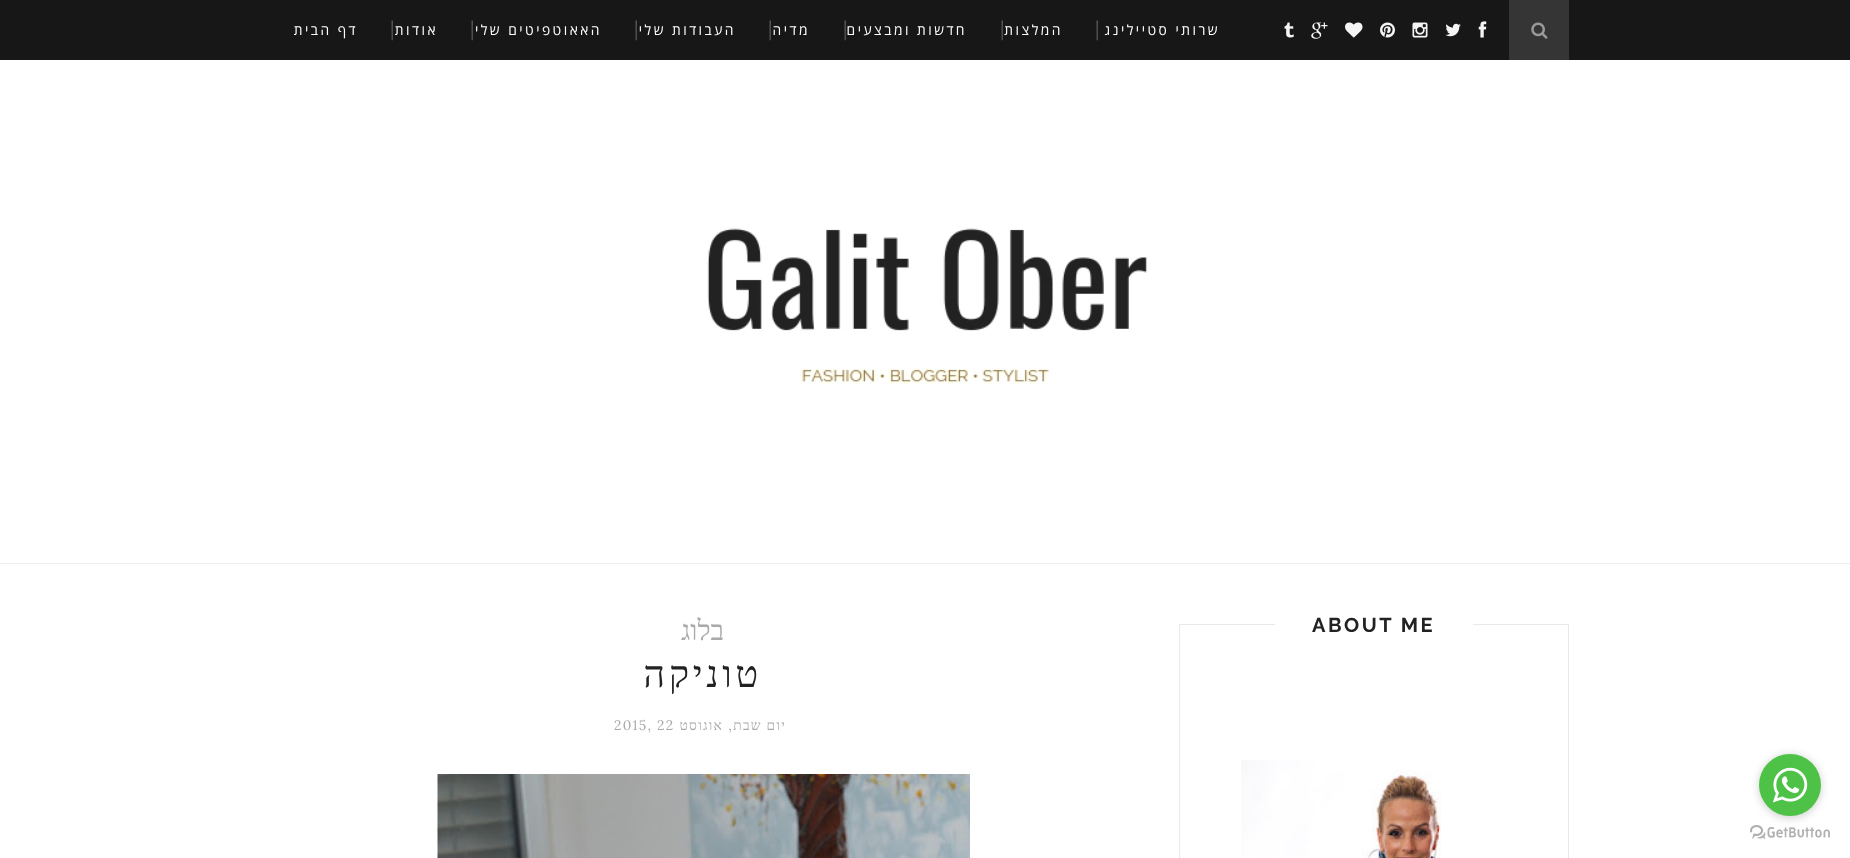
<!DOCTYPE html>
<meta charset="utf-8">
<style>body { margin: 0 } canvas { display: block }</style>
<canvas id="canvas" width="1850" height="858"></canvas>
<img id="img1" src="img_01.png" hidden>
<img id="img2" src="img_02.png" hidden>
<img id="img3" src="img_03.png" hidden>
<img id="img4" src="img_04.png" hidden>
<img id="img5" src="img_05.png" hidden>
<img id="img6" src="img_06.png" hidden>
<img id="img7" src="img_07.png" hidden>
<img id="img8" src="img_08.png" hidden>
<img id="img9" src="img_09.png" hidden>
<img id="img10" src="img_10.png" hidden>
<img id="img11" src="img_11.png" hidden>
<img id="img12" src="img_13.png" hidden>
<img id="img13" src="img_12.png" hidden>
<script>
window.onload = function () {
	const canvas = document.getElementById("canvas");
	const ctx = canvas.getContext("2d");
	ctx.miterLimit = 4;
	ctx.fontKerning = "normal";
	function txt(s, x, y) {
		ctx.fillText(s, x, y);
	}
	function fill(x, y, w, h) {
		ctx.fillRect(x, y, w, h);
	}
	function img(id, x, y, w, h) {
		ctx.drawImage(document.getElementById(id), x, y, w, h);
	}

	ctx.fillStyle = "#FFFFFF";
	fill(0, 0, 1850, 858);
	ctx.fillStyle = "#171717";
	fill(0, 0, 1850, 60);
	ctx.fillStyle = "#353535";
	fill(1509, 0, 60, 60);
	img("img1", 1531, 22, 17, 17);
	img("img2", 1478, 21, 9, 17);
	img("img3", 1445, 23, 16, 14);
	img("img4", 1412, 22, 16, 16);
	img("img5", 1380, 22, 15, 16);
	img("img6", 1345, 22, 18, 16);
	img("img7", 1311, 22, 17, 17);
	img("img8", 1284, 22, 10, 16);
	ctx.fillStyle = "#EEEEEE";
	fill(0, 563, 1850, 1);
	img("img9", 707, 228, 440, 156);
	ctx.strokeStyle = "#E9E9E9";
	ctx.strokeRect(1179.5, 624.5, 389, 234);
	ctx.fillStyle = "#FFFFFF";
	fill(1275, 624, 198, 1);
	img("img10", 1241, 760, 200, 98);
	img("img11", 437, 774, 533, 84);
	img("img12", 1750, 825, 80, 14);
	ctx.fillStyle = "rgba(136, 136, 136, 0.4)";
	ctx.filter = "blur(4.5px)";
	ctx.beginPath();
	ctx.roundRect(1759, 755, 62, 63, 31);
	ctx.fill();
	ctx.filter = "none";
	ctx.fillStyle = "#4DC247";
	ctx.beginPath();
	ctx.arc(1790, 785, 31, 0, Math.PI * 2);
	ctx.fill();
	img("img13", 1772, 767, 36, 36);
	ctx.letterSpacing = "2.5px";
	ctx.direction = "rtl";
	ctx.font = "13.75px Open Sans";
	ctx.fillStyle = "#FFFFFF";
	txt("שרותי סטיילינג", 1220, 35);
	ctx.letterSpacing = "0px";
	ctx.direction = "ltr";
	ctx.font = "19px Lora";
	ctx.fillStyle = "#565656";
	txt("|", 1095, 35);
	ctx.letterSpacing = "2.5px";
	ctx.direction = "rtl";
	ctx.font = "13.75px Open Sans";
	ctx.fillStyle = "#FFFFFF";
	txt("המלצות", 1063, 35);
	ctx.letterSpacing = "0px";
	ctx.direction = "ltr";
	ctx.font = "19px Lora";
	ctx.fillStyle = "#565656";
	txt("|", 1000, 35);
	ctx.letterSpacing = "2.5px";
	ctx.direction = "rtl";
	ctx.font = "13.75px Open Sans";
	ctx.fillStyle = "#FFFFFF";
	txt("חדשות ומבצעים", 967, 35);
	ctx.letterSpacing = "0px";
	ctx.direction = "ltr";
	ctx.font = "19px Lora";
	ctx.fillStyle = "#565656";
	txt("|", 843, 35);
	ctx.letterSpacing = "2.5px";
	ctx.direction = "rtl";
	ctx.font = "13.75px Open Sans";
	ctx.fillStyle = "#FFFFFF";
	txt("מדיה", 810, 35);
	ctx.letterSpacing = "0px";
	ctx.direction = "ltr";
	ctx.font = "19px Lora";
	ctx.fillStyle = "#565656";
	txt("|", 768, 35);
	ctx.letterSpacing = "2.5px";
	ctx.direction = "rtl";
	ctx.font = "13.75px Open Sans";
	ctx.fillStyle = "#FFFFFF";
	txt("העבודות שלי", 736, 35);
	ctx.letterSpacing = "0px";
	ctx.direction = "ltr";
	ctx.font = "19px Lora";
	ctx.fillStyle = "#565656";
	txt("|", 634, 35);
	ctx.letterSpacing = "2.5px";
	ctx.direction = "rtl";
	ctx.font = "13.75px Open Sans";
	ctx.fillStyle = "#FFFFFF";
	txt("האאוטפיטים שלי", 602, 35);
	ctx.letterSpacing = "0px";
	ctx.direction = "ltr";
	ctx.font = "19px Lora";
	ctx.fillStyle = "#565656";
	txt("|", 470, 35);
	ctx.letterSpacing = "2.5px";
	ctx.direction = "rtl";
	ctx.font = "13.75px Open Sans";
	ctx.fillStyle = "#FFFFFF";
	txt("אודות", 438, 35);
	ctx.letterSpacing = "0px";
	ctx.direction = "ltr";
	ctx.font = "19px Lora";
	ctx.fillStyle = "#565656";
	txt("|", 390, 35);
	ctx.letterSpacing = "2.5px";
	ctx.direction = "rtl";
	ctx.font = "13.75px Open Sans";
	ctx.fillStyle = "#FFFFFF";
	txt("דף הבית", 358, 35);
	ctx.direction = "ltr";
	ctx.font = "bold 20px Raleway";
	ctx.fillStyle = "#222222";
	txt("ABOUT ME", 1312, 632);
	ctx.letterSpacing = "0px";
	ctx.direction = "rtl";
	ctx.font = "28px Liberation Serif";
	ctx.fillStyle = "#AAAAAA";
	txt("בלוג", 724, 640);
	ctx.letterSpacing = "3.75px";
	ctx.font = "37.5px Liberation Serif";
	ctx.fillStyle = "#222222";
	txt("טוניקה", 762, 687);
	ctx.letterSpacing = "1.25px";
	ctx.font = "13.75px Liberation Serif";
	ctx.fillStyle = "#AAAAAA";
	txt("יום שבת", 786, 730);
	ctx.font = "13.75px Lora";
	txt(",", 733, 730);
	ctx.font = "13.75px Liberation Serif";
	txt("אוגוסט", 723, 730);
	ctx.direction = "ltr";
	ctx.font = "13.75px Lora";
	txt("2015, 22", 614, 730);
};
</script>
